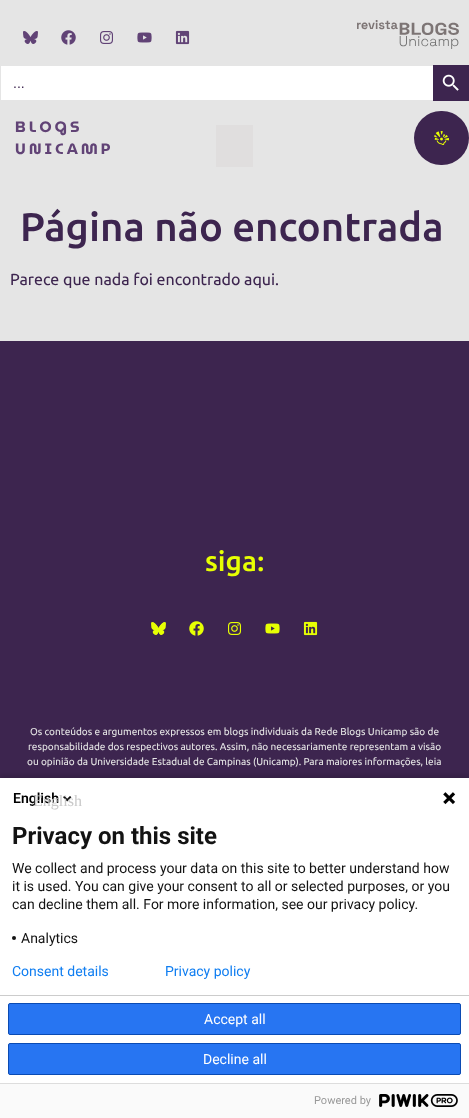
<!DOCTYPE html>
<meta charset="utf-8">
<style>body { margin: 0 } canvas { display: block }</style>
<canvas id="canvas" width="469" height="1118"></canvas>
<img id="img1" src="img_01.png" hidden>
<img id="img2" src="img_02.png" hidden>
<img id="img3" src="img_03.png" hidden>
<img id="img4" src="img_04.png" hidden>
<img id="img5" src="img_05.png" hidden>
<img id="img6" src="img_06.png" hidden>
<img id="img7" src="img_07.png" hidden>
<img id="img8" src="img_08.png" hidden>
<img id="img9" src="img_09.png" hidden>
<img id="img10" src="img_10.png" hidden>
<img id="img11" src="img_11.png" hidden>
<img id="img12" src="img_12.png" hidden>
<img id="img13" src="img_13.png" hidden>
<img id="img14" src="img_14.png" hidden>
<img id="img15" src="img_15.png" hidden>
<img id="img16" src="img_16.png" hidden>
<script>
window.onload = function () {
	const canvas = document.getElementById("canvas");
	const ctx = canvas.getContext("2d");
	ctx.miterLimit = 4;
	ctx.fontKerning = "normal";
	function txt(s, x, y) {
		ctx.fillText(s, x, y);
	}
	function fill(x, y, w, h) {
		ctx.fillRect(x, y, w, h);
	}
	function round(x, y, w, h, r) {
		ctx.beginPath();
		ctx.roundRect(x, y, w, h, r);
		ctx.fill();
	}
	function img(id, x, y, w, h) {
		ctx.drawImage(document.getElementById(id), x, y, w, h);
	}

	ctx.fillStyle = "#E5E5E5";
	fill(0, 0, 469, 1118);
	img("img1", 23, 31, 15, 13);
	img("img2", 61, 30, 15, 15);
	img("img3", 100, 31, 13, 13);
	img("img4", 137, 32, 15, 11);
	img("img5", 175, 30, 15, 15);
	img("img6", 357, 20, 102, 29);
	ctx.fillStyle = "#FFFFFF";
	fill(1, 66, 432, 34);
	ctx.fillStyle = "#3D254F";
	fill(433, 65, 36, 36);
	img("img7", 442, 74, 17, 17);
	ctx.fillStyle = "#E0DEDE";
	fill(216, 125, 37, 42);
	ctx.fillStyle = "#3D254F";
	round(414, 111, 55, 54, 27);
	img("img8", 434, 131, 15, 14);
	fill(0, 341, 469, 437);
	img("img9", 151, 622, 15, 13);
	img("img10", 189, 621, 15, 15);
	img("img11", 228, 622, 14, 13);
	img("img12", 265, 623, 15, 11);
	img("img13", 303, 621, 15, 15);
	ctx.fillStyle = "rgba(0, 0, 0, 0.14)";
	ctx.filter = "blur(2.5px)";
	ctx.beginPath();
	ctx.rect(-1, 775, 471, 342);
	ctx.fill();
	ctx.filter = "none";
	ctx.fillStyle = "#FFFFFF";
	fill(0, 778, 469, 305);
	img("img14", 63, 795, 9, 7);
	img("img15", 443, 792, 13, 13);
	ctx.fillStyle = "#131313";
	ctx.beginPath();
	ctx.arc(14, 938, 2, 0, Math.PI * 2);
	ctx.fill();
	ctx.fillStyle = "#CCCCCC";
	fill(0, 995, 469, 1);
	ctx.fillStyle = "#2775F2";
	ctx.beginPath();
	ctx.roundRect(8.5, 1003.5, 452, 31, 1.5);
	ctx.fill();
	ctx.strokeStyle = "#0B4BB3";
	ctx.stroke();
	ctx.beginPath();
	ctx.roundRect(8.5, 1043.5, 452, 31, 1.5);
	ctx.fill();
	ctx.stroke();
	ctx.fillStyle = "#FAFAFA";
	fill(0, 1084, 469, 34);
	ctx.fillStyle = "#DDDDDD";
	fill(0, 1083, 469, 1);
	img("img16", 379, 1094, 79, 13);
	ctx.font = "14px Liberation Sans";
	ctx.fillStyle = "#3D254F";
	txt("...", 13, 88);
	ctx.letterSpacing = "3.25px";
	ctx.font = "bold 15px MuseoModerno";
	ctx.fillStyle = "#614376";
	txt("BLOGS", 15, 132);
	txt("UNICAMP", 15, 154);
	ctx.letterSpacing = "0px";
	ctx.font = "500 40px Ubuntu";
	ctx.fillStyle = "#3D254F";
	txt("Página não encontrada", 20, 241);
	ctx.font = "16px Ubuntu";
	txt("Parece que nada foi encontrado aqui.", 10, 285);
	ctx.font = "500 28px Ubuntu";
	ctx.fillStyle = "#E7FF03";
	txt("siga:", 205, 571);
	ctx.font = "10px Ubuntu";
	ctx.fillStyle = "#E5E5E5";
	txt("Os conteúdos e argumentos expressos em blogs individuais da Rede Blogs Unicamp são de", 30, 735);
	txt("responsabilidade dos respectivos autores. Assim, não necessariamente representam a visão", 28, 750);
	txt("ou opinião da Universidade Estadual de Campinas (Unicamp). Para maiores informações, leia", 27, 765);
	ctx.font = "600 14px Roboto";
	ctx.fillStyle = "#000000";
	txt("English", 13, 803);
	ctx.font = "16px Liberation Serif";
	ctx.fillStyle = "#C9C9C9";
	txt("English", 33, 806);
	ctx.font = "bold 24px Roboto";
	ctx.fillStyle = "#131313";
	txt("Privacy on this site", 12, 844);
	ctx.font = "14px Roboto";
	txt("We collect and process your data on this site to better understand how", 12, 873);
	txt("it is used. You can give your consent to all or selected purposes, or you", 12, 891);
	txt("can decline them all. For more information, see our privacy policy.", 12, 909);
	txt("Analytics", 21, 943);
	ctx.fillStyle = "#FFFFFF";
	txt("Accept all", 204, 1024);
	txt("Decline all", 203, 1064);
	ctx.fillStyle = "#107EF1";
	txt("Consent details", 12, 976);
	txt("Privacy policy", 165, 976);
	ctx.font = "11px Roboto";
	ctx.fillStyle = "#999999";
	txt("Powered by", 314, 1104);
};
</script>
